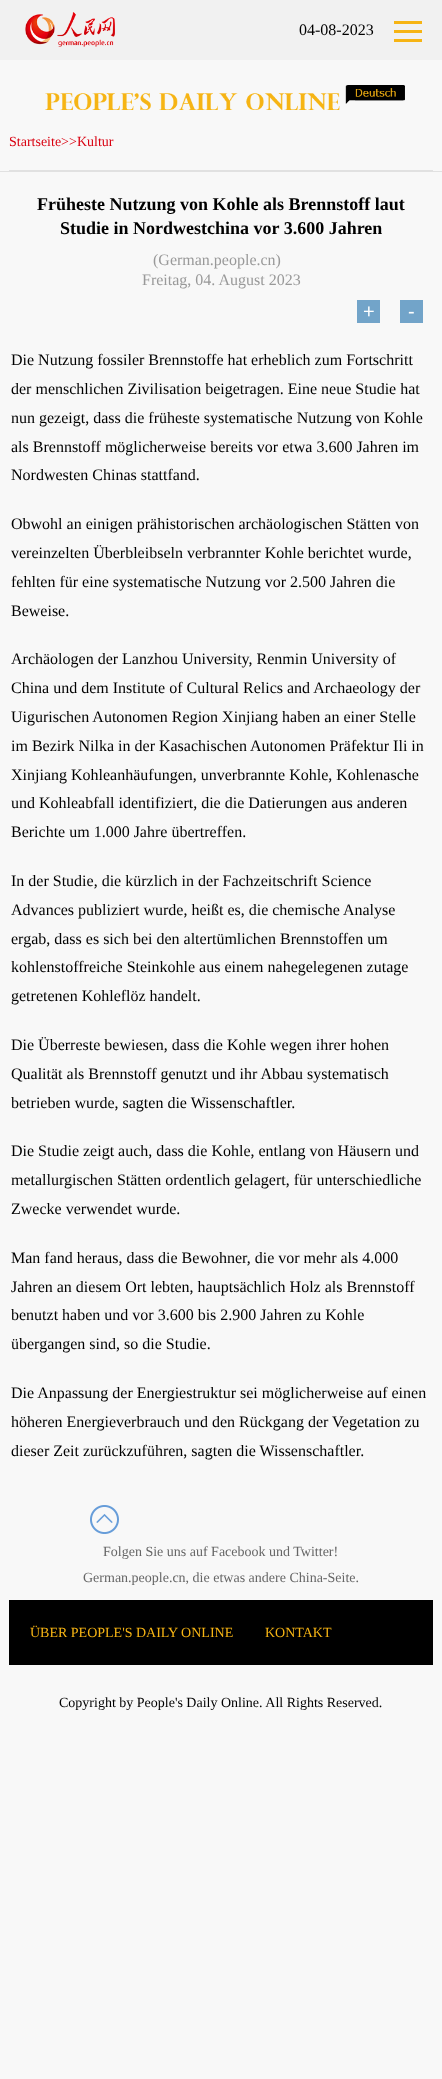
<!DOCTYPE html>
<meta charset="utf-8">
<style>body { margin: 0 } canvas { display: block }</style>
<canvas id="canvas" width="442" height="2079"></canvas>
<img id="img1" src="img_01.png" hidden>
<img id="img2" src="img_02.png" hidden>
<img id="img3" src="img_03.png" hidden>
<img id="img4" src="img_04.png" hidden>
<script>
window.onload = function () {
	const canvas = document.getElementById("canvas");
	const ctx = canvas.getContext("2d");
	ctx.miterLimit = 4;
	ctx.fontKerning = "normal";
	function txt(s, x, y) {
		ctx.fillText(s, x, y);
	}
	function fill(x, y, w, h) {
		ctx.fillRect(x, y, w, h);
	}
	function img(id, x, y, w, h) {
		ctx.drawImage(document.getElementById(id), x, y, w, h);
	}

	ctx.fillStyle = "#F8F8F8";
	fill(0, 0, 442, 2079);
	ctx.fillStyle = "#F1F1F1";
	fill(0, 0, 442, 60);
	img("img1", 25, 12, 90, 35);
	img("img2", 394, 21, 28, 21);
	img("img3", 45, 85, 360, 25);
	ctx.fillStyle = "#E1E1E1";
	fill(9, 170, 424, 1);
	fill(0, 171, 442, 1);
	ctx.fillStyle = "#72A4C9";
	fill(357, 300, 23, 23);
	fill(400, 300, 23, 23);
	img("img4", 90, 1505, 29, 29);
	ctx.fillStyle = "#000000";
	fill(9, 1600, 424, 65);
	ctx.font = "16px Liberation Serif";
	txt("04-08-2023", 299, 35);
	ctx.font = "14px Liberation Serif";
	ctx.fillStyle = "#D90010";
	txt("Startseite>>Kultur", 9, 146);
	ctx.font = "bold 18px Liberation Serif";
	ctx.fillStyle = "#000000";
	txt("Früheste Nutzung von Kohle als Brennstoff laut", 37, 210);
	txt("Studie in Nordwestchina vor 3.600 Jahren", 60, 234);
	ctx.font = "16px Liberation Serif";
	ctx.fillStyle = "#999999";
	txt("(German.people.cn)", 153, 265);
	txt("Freitag, 04. August 2023", 142, 285);
	ctx.font = "20px Liberation Sans";
	ctx.fillStyle = "#FFFFFF";
	txt("+", 363, 318);
	txt("-", 408, 318);
	ctx.font = "16px Liberation Serif";
	ctx.fillStyle = "#000000";
	txt("Die Nutzung fossiler Brennstoffe hat erheblich zum Fortschritt", 11, 365);
	txt("der menschlichen Zivilisation beigetragen. Eine neue Studie hat", 11, 394);
	txt("nun gezeigt, dass die früheste systematische Nutzung von Kohle", 11, 423);
	txt("als Brennstoff möglicherweise bereits vor etwa 3.600 Jahren im", 11, 452);
	txt("Nordwesten Chinas stattfand.", 11, 480);
	txt("Obwohl an einigen prähistorischen archäologischen Stätten von", 11, 529);
	txt("vereinzelten Überbleibseln verbrannter Kohle berichtet wurde,", 11, 558);
	txt("fehlten für eine systematische Nutzung vor 2.500 Jahren die", 11, 587);
	txt("Beweise.", 11, 616);
	txt("Archäologen der Lanzhou University, Renmin University of", 11, 664);
	txt("China und dem Institute of Cultural Relics and Archaeology der", 11, 693);
	txt("Uigurischen Autonomen Region Xinjiang haben an einer Stelle", 11, 722);
	txt("im Bezirk Nilka in der Kasachischen Autonomen Präfektur Ili in", 11, 751);
	txt("Xinjiang Kohleanhäufungen, unverbrannte Kohle, Kohlenasche", 11, 780);
	txt("und Kohleabfall identifiziert, die die Datierungen aus anderen", 11, 808);
	txt("Berichte um 1.000 Jahre übertreffen.", 11, 837);
	txt("In der Studie, die kürzlich in der Fachzeitschrift Science", 11, 886);
	txt("Advances publiziert wurde, heißt es, die chemische Analyse", 11, 915);
	txt("ergab, dass es sich bei den altertümlichen Brennstoffen um", 11, 944);
	txt("kohlenstoffreiche Steinkohle aus einem nahegelegenen zutage", 11, 972);
	txt("getretenen Kohleflöz handelt.", 11, 1001);
	txt("Die Überreste bewiesen, dass die Kohle wegen ihrer hohen", 11, 1050);
	txt("Qualität als Brennstoff genutzt und ihr Abbau systematisch", 11, 1079);
	txt("betrieben wurde, sagten die Wissenschaftler.", 11, 1108);
	txt("Die Studie zeigt auch, dass die Kohle, entlang von Häusern und", 11, 1156);
	txt("metallurgischen Stätten ordentlich gelagert, für unterschiedliche", 11, 1185);
	txt("Zwecke verwendet wurde.", 11, 1214);
	txt("Man fand heraus, dass die Bewohner, die vor mehr als 4.000", 11, 1263);
	txt("Jahren an diesem Ort lebten, hauptsächlich Holz als Brennstoff", 11, 1292);
	txt("benutzt haben und vor 3.600 bis 2.900 Jahren zu Kohle", 11, 1320);
	txt("übergangen sind, so die Studie.", 11, 1349);
	txt("Die Anpassung der Energiestruktur sei möglicherweise auf einen", 11, 1398);
	txt("höheren Energieverbrauch und den Rückgang der Vegetation zu", 11, 1427);
	txt("dieser Zeit zurückzuführen, sagten die Wissenschaftler.", 11, 1456);
	ctx.font = "14px Liberation Serif";
	ctx.fillStyle = "#666666";
	txt("Folgen Sie uns auf Facebook und Twitter!", 103, 1556);
	txt("German.people.cn, die etwas andere China-Seite.", 83, 1582);
	ctx.fillStyle = "#F6B414";
	txt("ÜBER PEOPLE'S DAILY ONLINE", 30, 1637);
	txt("KONTAKT", 265, 1637);
	ctx.fillStyle = "#000000";
	txt("Copyright by People's Daily Online. All Rights Reserved.", 59, 1707);
};
</script>
